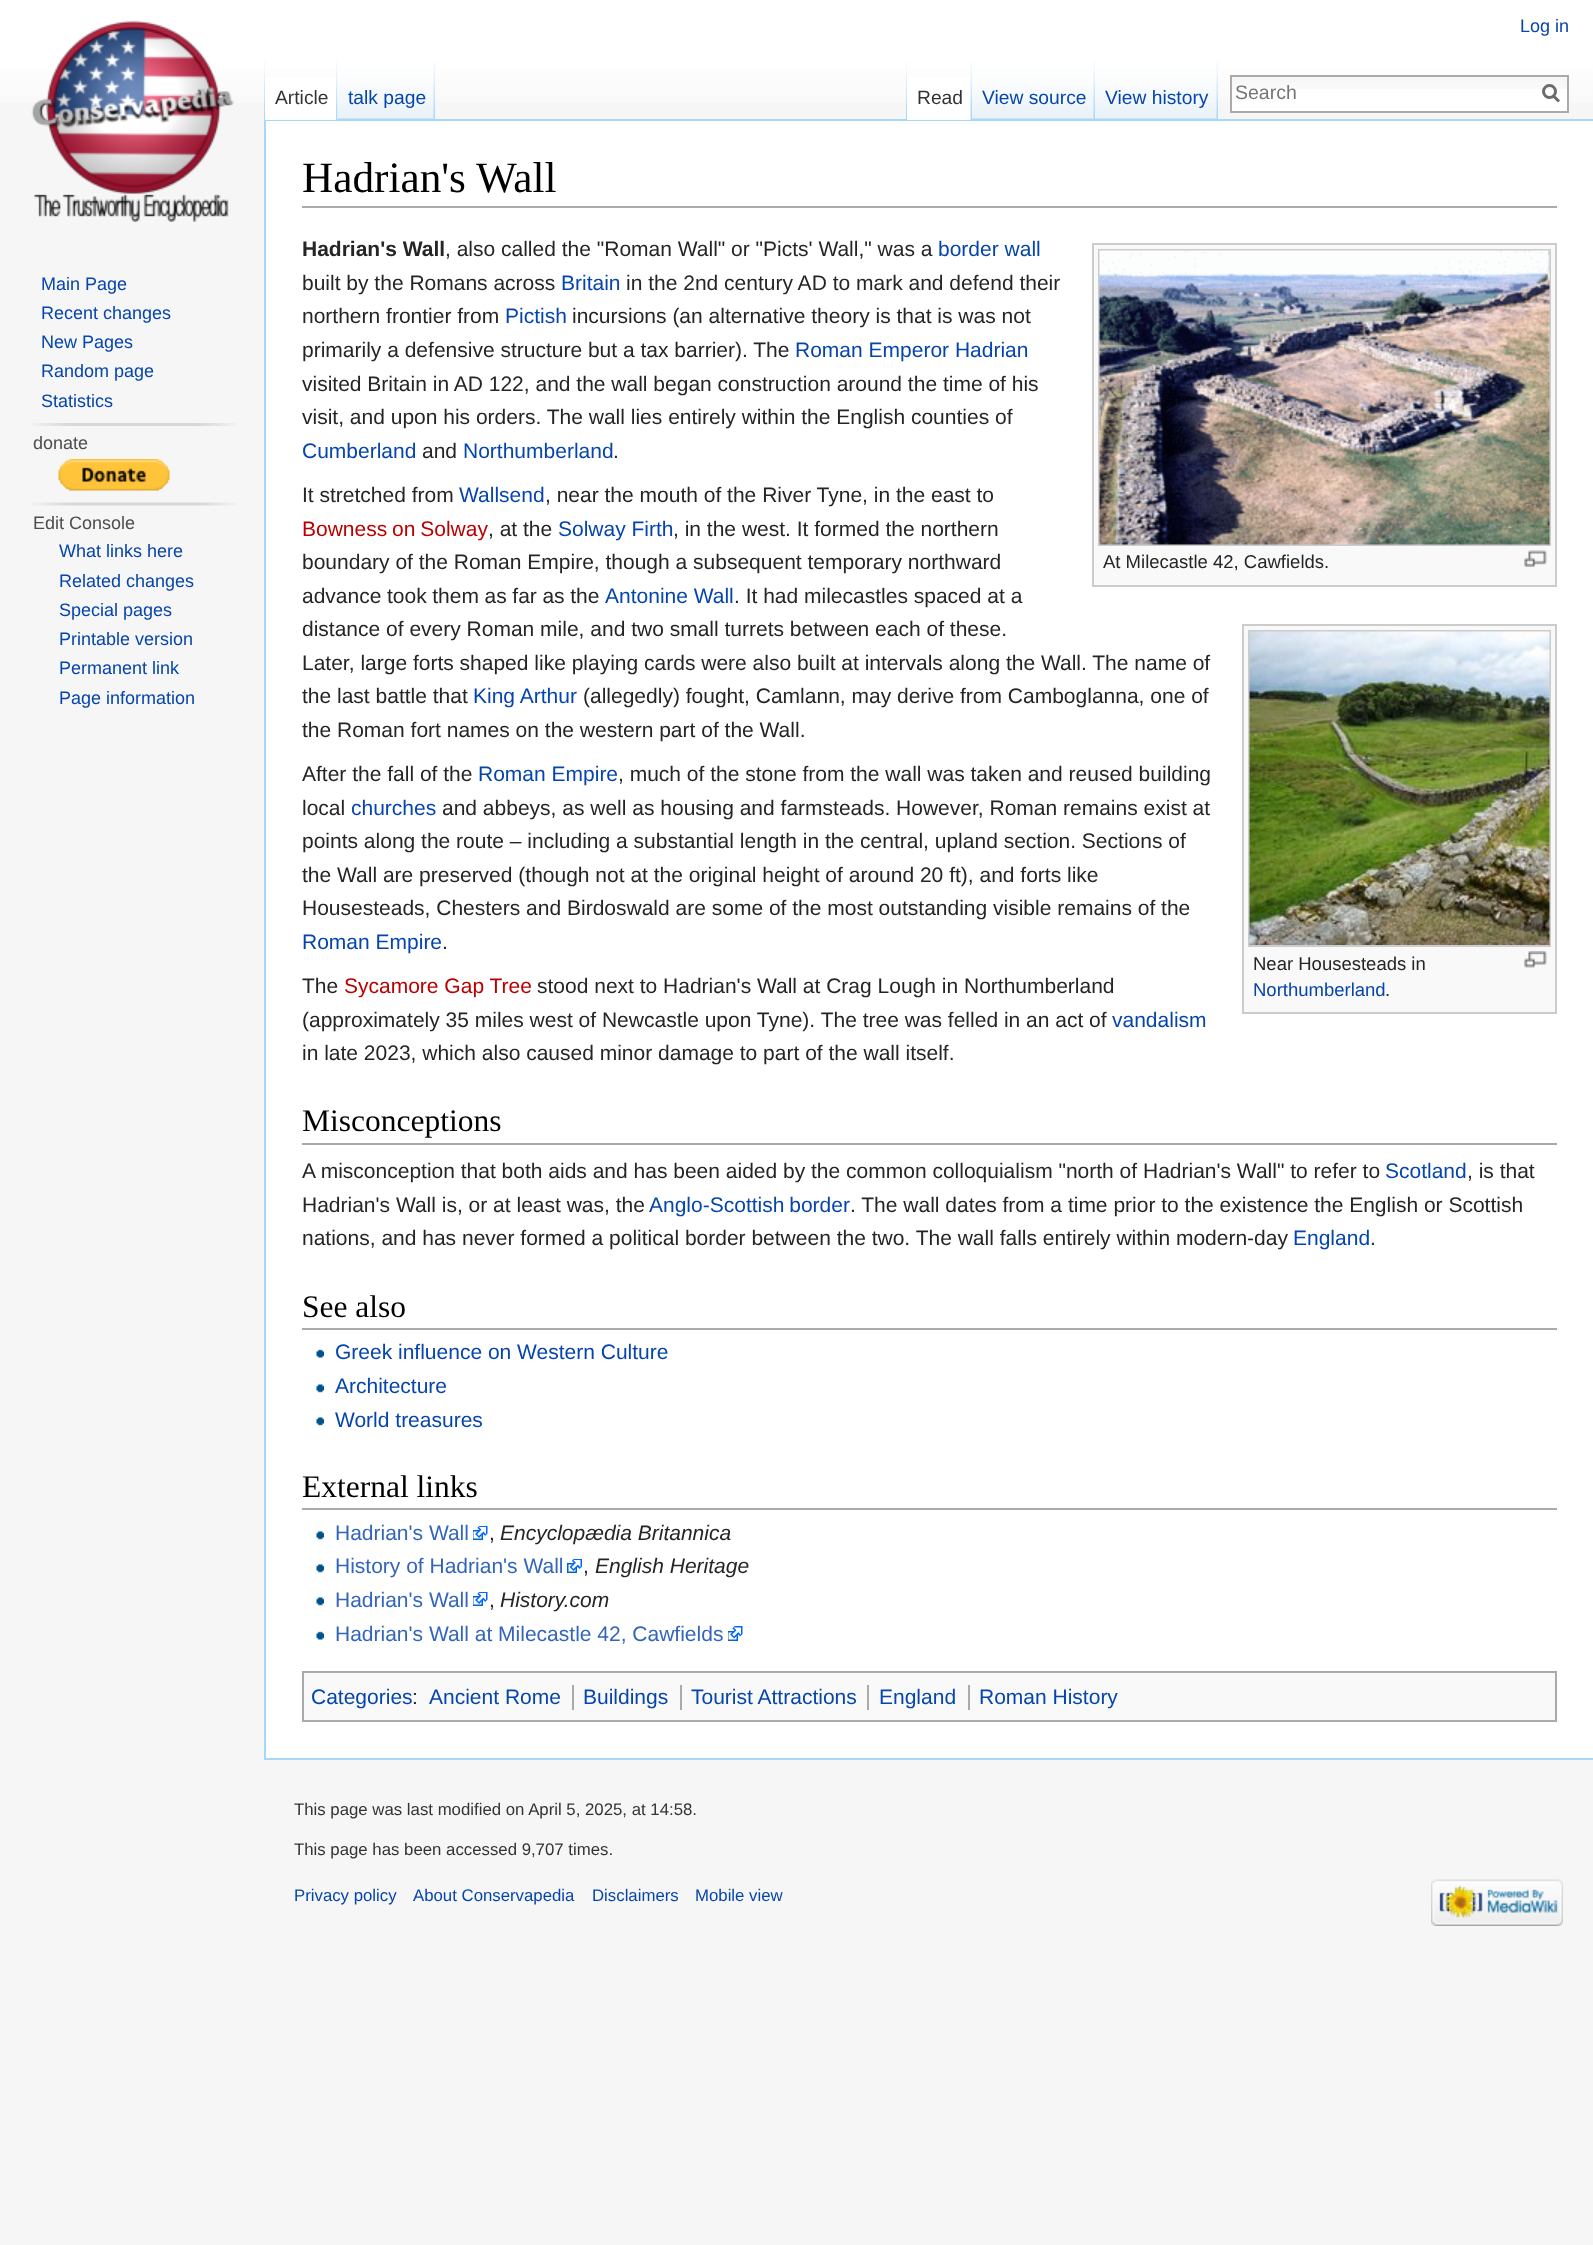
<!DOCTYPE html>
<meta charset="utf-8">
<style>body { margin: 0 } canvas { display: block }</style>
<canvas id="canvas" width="1593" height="2245"></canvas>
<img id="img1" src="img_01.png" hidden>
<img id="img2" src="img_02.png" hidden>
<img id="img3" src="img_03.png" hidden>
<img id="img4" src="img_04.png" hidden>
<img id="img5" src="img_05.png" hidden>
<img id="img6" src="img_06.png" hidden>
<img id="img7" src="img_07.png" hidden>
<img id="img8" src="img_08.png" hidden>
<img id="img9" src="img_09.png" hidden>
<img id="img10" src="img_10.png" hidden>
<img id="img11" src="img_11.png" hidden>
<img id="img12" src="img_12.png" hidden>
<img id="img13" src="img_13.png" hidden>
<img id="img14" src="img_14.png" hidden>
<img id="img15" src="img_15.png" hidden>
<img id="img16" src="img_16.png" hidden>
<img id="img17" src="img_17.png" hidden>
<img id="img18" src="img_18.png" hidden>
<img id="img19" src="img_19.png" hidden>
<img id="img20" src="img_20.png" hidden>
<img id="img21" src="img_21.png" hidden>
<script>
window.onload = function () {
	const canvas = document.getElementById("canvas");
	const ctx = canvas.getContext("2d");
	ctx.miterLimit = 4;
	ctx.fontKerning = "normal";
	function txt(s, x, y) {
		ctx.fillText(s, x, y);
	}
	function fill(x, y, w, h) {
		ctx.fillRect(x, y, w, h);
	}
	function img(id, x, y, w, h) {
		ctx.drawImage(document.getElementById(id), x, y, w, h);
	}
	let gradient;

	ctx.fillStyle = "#F6F6F6";
	fill(0, 0, 1593, 2245);
	gradient = ctx.createLinearGradient(797, 0, 797, 120);
	gradient.addColorStop(0.5, "#FFFFFF");
	gradient.addColorStop(1, "#F6F6F6");
	ctx.fillStyle = gradient;
	fill(0, 0, 1593, 103);
	img("img1", 264, 60, 1, 59);
	ctx.fillStyle = "#A7D7F9";
	fill(264, 119, 1329, 2);
	fill(264, 1758, 1329, 2);
	fill(264, 119, 2, 1641);
	ctx.fillStyle = "#FFFFFF";
	fill(265, 77, 73, 43);
	img("img2", 336, 61, 2, 59);
	img("img3", 337, 60, 98, 60);
	img("img4", 433, 61, 2, 58);
	img("img1", 906, 60, 1, 59);
	fill(907, 77, 65, 43);
	img("img5", 970, 61, 2, 59);
	img("img6", 972, 60, 123, 60);
	img("img4", 1093, 61, 2, 58);
	img("img6", 1095, 60, 123, 60);
	img("img4", 1216, 61, 2, 58);
	fill(1232, 89, 335, 22);
	img("img7", 1232, 77, 335, 12);
	ctx.strokeStyle = "#AAAAAA";
	ctx.lineWidth = 2;
	ctx.strokeRect(1231, 76, 337, 36);
	ctx.beginPath();
	ctx.moveTo(1559, 101.5);
	ctx.lineTo(1553, 95.5);
	ctx.strokeStyle = "#6C6C6C";
	ctx.lineWidth = 3;
	ctx.stroke();
	ctx.beginPath();
	ctx.arc(1549.5, 91.5, 6, 0, Math.PI * 2);
	ctx.stroke();
	img("img8", 31, 20, 203, 202);
	img("img9", 32, 423, 204, 3);
	img("img10", 58, 459, 112, 32);
	img("img11", 32, 502, 204, 4);
	fill(266, 121, 1327, 1637);
	ctx.fillStyle = "#AAAAAA";
	fill(302, 206, 1255, 2);
	ctx.fillStyle = "#F9F9F9";
	ctx.beginPath();
	ctx.rect(1093, 244, 463, 342);
	ctx.fill();
	ctx.strokeStyle = "#CCCCCC";
	ctx.lineWidth = 2;
	ctx.stroke();
	ctx.strokeRect(1099, 250, 451, 295);
	img("img12", 1099, 250, 451, 295);
	img("img13", 1524, 550, 23, 17);
	ctx.beginPath();
	ctx.rect(1243, 625, 313, 388);
	ctx.fill();
	ctx.stroke();
	ctx.strokeRect(1249, 631, 301, 315);
	img("img14", 1249, 631, 301, 314);
	img("img15", 1524, 951, 23, 17);
	ctx.fillStyle = "#AAAAAA";
	fill(302, 1143, 1255, 2);
	fill(302, 1328, 1255, 2);
	img("img16", 316, 1349, 8, 9);
	img("img17", 316, 1384, 8, 9);
	img("img17", 316, 1417, 8, 9);
	fill(302, 1508, 1255, 2);
	img("img17", 316, 1531, 8, 9);
	img("img18", 473, 1526, 15, 14);
	img("img17", 316, 1564, 8, 9);
	img("img19", 567, 1559, 15, 14);
	img("img17", 316, 1597, 8, 9);
	img("img18", 473, 1592, 15, 14);
	img("img16", 316, 1631, 8, 9);
	img("img20", 728, 1626, 15, 15);
	ctx.fillStyle = "#F9F9F9";
	ctx.beginPath();
	ctx.rect(303, 1672, 1253, 49);
	ctx.fill();
	ctx.strokeStyle = "#AAAAAA";
	ctx.stroke();
	ctx.fillStyle = "#AAAAAA";
	fill(572, 1685, 2, 25);
	fill(680, 1685, 2, 25);
	fill(867, 1685, 2, 25);
	fill(968, 1685, 2, 25);
	img("img21", 1431, 1879, 132, 47);
	ctx.font = "18px Liberation Sans";
	ctx.fillStyle = "#0645AD";
	txt("Log in", 1520, 32);
	ctx.font = "19.25px Liberation Sans";
	ctx.fillStyle = "#333333";
	txt("Article", 275, 104);
	ctx.fillStyle = "#0645AD";
	txt("talk page", 348, 104);
	ctx.fillStyle = "#333333";
	txt("Read", 917, 104);
	ctx.fillStyle = "#0645AD";
	txt("View source", 982, 104);
	txt("View history", 1105, 104);
	ctx.font = "19.5px Liberation Sans";
	ctx.fillStyle = "#757575";
	txt("Search", 1235, 99);
	ctx.font = "18px Liberation Sans";
	ctx.fillStyle = "#0645AD";
	txt("Main Page", 41, 290);
	txt("Recent changes", 41, 319);
	txt("New Pages", 41, 348);
	txt("Random page", 41, 377);
	txt("Statistics", 41, 407);
	ctx.fillStyle = "#4D4D4D";
	txt("donate", 33, 449);
	txt("Edit Console", 33, 529);
	ctx.fillStyle = "#0645AD";
	txt("What links here", 59, 557);
	txt("Related changes", 59, 587);
	txt("Special pages", 59, 616);
	txt("Printable version", 59, 645);
	txt("Permanent link", 59, 674);
	txt("Page information", 59, 704);
	ctx.font = "43.25px Liberation Serif";
	ctx.fillStyle = "#000000";
	txt("Hadrian's Wall", 302, 192);
	ctx.font = "bold 21px Liberation Sans";
	ctx.fillStyle = "#252525";
	txt("Hadrian's Wall", 302, 256);
	ctx.font = "21px Liberation Sans";
	txt(", also called the \"Roman Wall\" or \"Picts' Wall,\" was a", 445, 256);
	ctx.fillStyle = "#0645AD";
	txt("border wall", 938, 256);
	ctx.fillStyle = "#252525";
	txt("built by the Romans across", 302, 290);
	ctx.fillStyle = "#0645AD";
	txt("Britain", 561, 290);
	ctx.fillStyle = "#252525";
	txt("in the 2nd century AD to mark and defend their", 626, 290);
	txt("northern frontier from", 302, 323);
	ctx.fillStyle = "#0645AD";
	txt("Pictish", 505, 323);
	ctx.fillStyle = "#252525";
	txt("incursions (an alternative theory is that is was not", 572, 323);
	txt("primarily a defensive structure but a tax barrier). The", 302, 357);
	ctx.fillStyle = "#0645AD";
	txt("Roman Emperor Hadrian", 795, 357);
	ctx.fillStyle = "#252525";
	txt("visited Britain in AD 122, and the wall began construction around the time of his", 302, 391);
	txt("visit, and upon his orders. The wall lies entirely within the English counties of", 302, 424);
	ctx.fillStyle = "#0645AD";
	txt("Cumberland", 302, 458);
	ctx.fillStyle = "#252525";
	txt("and", 422, 458);
	ctx.fillStyle = "#0645AD";
	txt("Northumberland", 463, 458);
	ctx.fillStyle = "#252525";
	txt(".", 613, 458);
	txt("It stretched from", 302, 502);
	ctx.fillStyle = "#0645AD";
	txt("Wallsend", 459, 502);
	ctx.fillStyle = "#252525";
	txt(", near the mouth of the River Tyne, in the east to", 545, 502);
	ctx.wordSpacing = "-1px";
	ctx.fillStyle = "#BA0000";
	txt("Bowness on Solway", 302, 536);
	ctx.wordSpacing = "0px";
	ctx.fillStyle = "#252525";
	txt(", at the", 488, 536);
	ctx.fillStyle = "#0645AD";
	txt("Solway Firth", 558, 536);
	ctx.fillStyle = "#252525";
	txt(", in the west. It formed the northern", 673, 536);
	txt("boundary of the Roman Empire, though a subsequent temporary northward", 302, 569);
	ctx.wordSpacing = "-0.25px";
	txt("advance took them as far as the", 302, 603);
	ctx.wordSpacing = "0px";
	ctx.fillStyle = "#0645AD";
	txt("Antonine Wall", 605, 603);
	ctx.fillStyle = "#252525";
	txt(". It had milecastles spaced at a", 734, 603);
	txt("distance of every Roman mile, and two small turrets between each of these.", 302, 636);
	txt("Later, large forts shaped like playing cards were also built at intervals along the Wall. The name of", 302, 670);
	txt("the last battle that", 302, 703);
	ctx.fillStyle = "#0645AD";
	txt("King Arthur", 473, 703);
	ctx.fillStyle = "#252525";
	txt("(allegedly) fought, Camlann, may derive from Camboglanna, one of", 583, 703);
	txt("the Roman fort names on the western part of the Wall.", 302, 737);
	ctx.font = "18.5px Liberation Sans";
	txt("At Milecastle 42, Cawfields.", 1103, 568);
	ctx.font = "21px Liberation Sans";
	txt("After the fall of the", 302, 781);
	ctx.fillStyle = "#0645AD";
	txt("Roman Empire", 478, 781);
	ctx.fillStyle = "#252525";
	txt(", much of the stone from the wall was taken and reused building", 618, 781);
	txt("local", 302, 815);
	ctx.fillStyle = "#0645AD";
	txt("churches", 351, 815);
	ctx.fillStyle = "#252525";
	txt("and abbeys, as well as housing and farmsteads. However, Roman remains exist at", 442, 815);
	txt("points along the route – including a substantial length in the central, upland section. Sections of", 302, 848);
	txt("the Wall are preserved (though not at the original height of around 20 ft), and forts like", 302, 882);
	txt("Housesteads, Chesters and Birdoswald are some of the most outstanding visible remains of the", 302, 915);
	ctx.fillStyle = "#0645AD";
	txt("Roman Empire", 302, 949);
	ctx.fillStyle = "#252525";
	txt(".", 442, 949);
	txt("The", 302, 993);
	ctx.fillStyle = "#BA0000";
	txt("Sycamore Gap Tree", 344, 993);
	ctx.fillStyle = "#252525";
	txt("stood next to Hadrian's Wall at Crag Lough in Northumberland", 537, 993);
	txt("(approximately 35 miles west of Newcastle upon Tyne). The tree was felled in an act of", 302, 1027);
	ctx.fillStyle = "#0645AD";
	txt("vandalism", 1112, 1027);
	ctx.fillStyle = "#252525";
	txt("in late 2023, which also caused minor damage to part of the wall itself.", 302, 1060);
	ctx.font = "18.5px Liberation Sans";
	txt("Near Housesteads in", 1253, 970);
	ctx.fillStyle = "#0645AD";
	txt("Northumberland", 1253, 996);
	ctx.fillStyle = "#252525";
	txt(".", 1385, 996);
	ctx.font = "31.5px Liberation Serif";
	ctx.fillStyle = "#000000";
	txt("Misconceptions", 302, 1131);
	ctx.font = "21px Liberation Sans";
	ctx.fillStyle = "#252525";
	txt("A misconception that both aids and has been aided by the common colloquialism \"north of Hadrian's Wall\" to refer to", 302, 1178);
	ctx.fillStyle = "#0645AD";
	txt("Scotland", 1385, 1178);
	ctx.fillStyle = "#252525";
	txt(", is that", 1467, 1178);
	txt("Hadrian's Wall is, or at least was, the", 302, 1212);
	ctx.wordSpacing = "-1px";
	ctx.fillStyle = "#0645AD";
	txt("Anglo-Scottish border", 649, 1212);
	ctx.wordSpacing = "0px";
	ctx.fillStyle = "#252525";
	txt(". The wall dates from a time prior to the existence the English or Scottish", 850, 1212);
	txt("nations, and has never formed a political border between the two. The wall falls entirely within modern-day", 302, 1245);
	ctx.fillStyle = "#0645AD";
	txt("England", 1293, 1245);
	ctx.fillStyle = "#252525";
	txt(".", 1370, 1245);
	ctx.font = "31.5px Liberation Serif";
	ctx.fillStyle = "#000000";
	txt("See also", 302, 1317);
	ctx.font = "21px Liberation Sans";
	ctx.fillStyle = "#0645AD";
	txt("Greek influence on Western Culture", 335, 1359);
	txt("Architecture", 335, 1393);
	txt("World treasures", 335, 1427);
	ctx.font = "31.5px Liberation Serif";
	ctx.fillStyle = "#000000";
	txt("External links", 302, 1497);
	ctx.font = "21px Liberation Sans";
	ctx.fillStyle = "#3366BB";
	txt("Hadrian's Wall", 335, 1540);
	ctx.fillStyle = "#252525";
	txt(",", 489, 1540);
	ctx.font = "italic 21px Liberation Sans";
	txt("Encyclopædia Britannica", 500, 1540);
	ctx.font = "21px Liberation Sans";
	ctx.fillStyle = "#3366BB";
	txt("History of Hadrian's Wall", 335, 1573);
	ctx.fillStyle = "#252525";
	txt(",", 583, 1573);
	ctx.font = "italic 21px Liberation Sans";
	txt("English Heritage", 595, 1573);
	ctx.font = "21px Liberation Sans";
	ctx.fillStyle = "#3366BB";
	txt("Hadrian's Wall", 335, 1607);
	ctx.font = "italic 21px Liberation Sans";
	ctx.fillStyle = "#252525";
	txt("History.com", 500, 1607);
	ctx.font = "21px Liberation Sans";
	txt(",", 489, 1607);
	ctx.fillStyle = "#3366BB";
	txt("Hadrian's Wall at Milecastle 42, Cawfields", 335, 1641);
	ctx.fillStyle = "#0645AD";
	txt("Categories", 311, 1704);
	ctx.fillStyle = "#252525";
	txt(":", 412, 1704);
	ctx.fillStyle = "#0645AD";
	txt("Ancient Rome", 429, 1704);
	txt("Buildings", 583, 1704);
	txt("Tourist Attractions", 691, 1704);
	txt("England", 879, 1704);
	txt("Roman History", 979, 1704);
	ctx.font = "16.8px Liberation Sans";
	ctx.fillStyle = "#333333";
	txt("This page was last modified on April 5, 2025, at 14:58.", 294, 1815);
	txt("This page has been accessed 9,707 times.", 294, 1855);
	ctx.fillStyle = "#0645AD";
	txt("Privacy policy", 294, 1901);
	txt("About Conservapedia", 413, 1901);
	txt("Disclaimers", 592, 1901);
	txt("Mobile view", 695, 1901);
};
</script>
